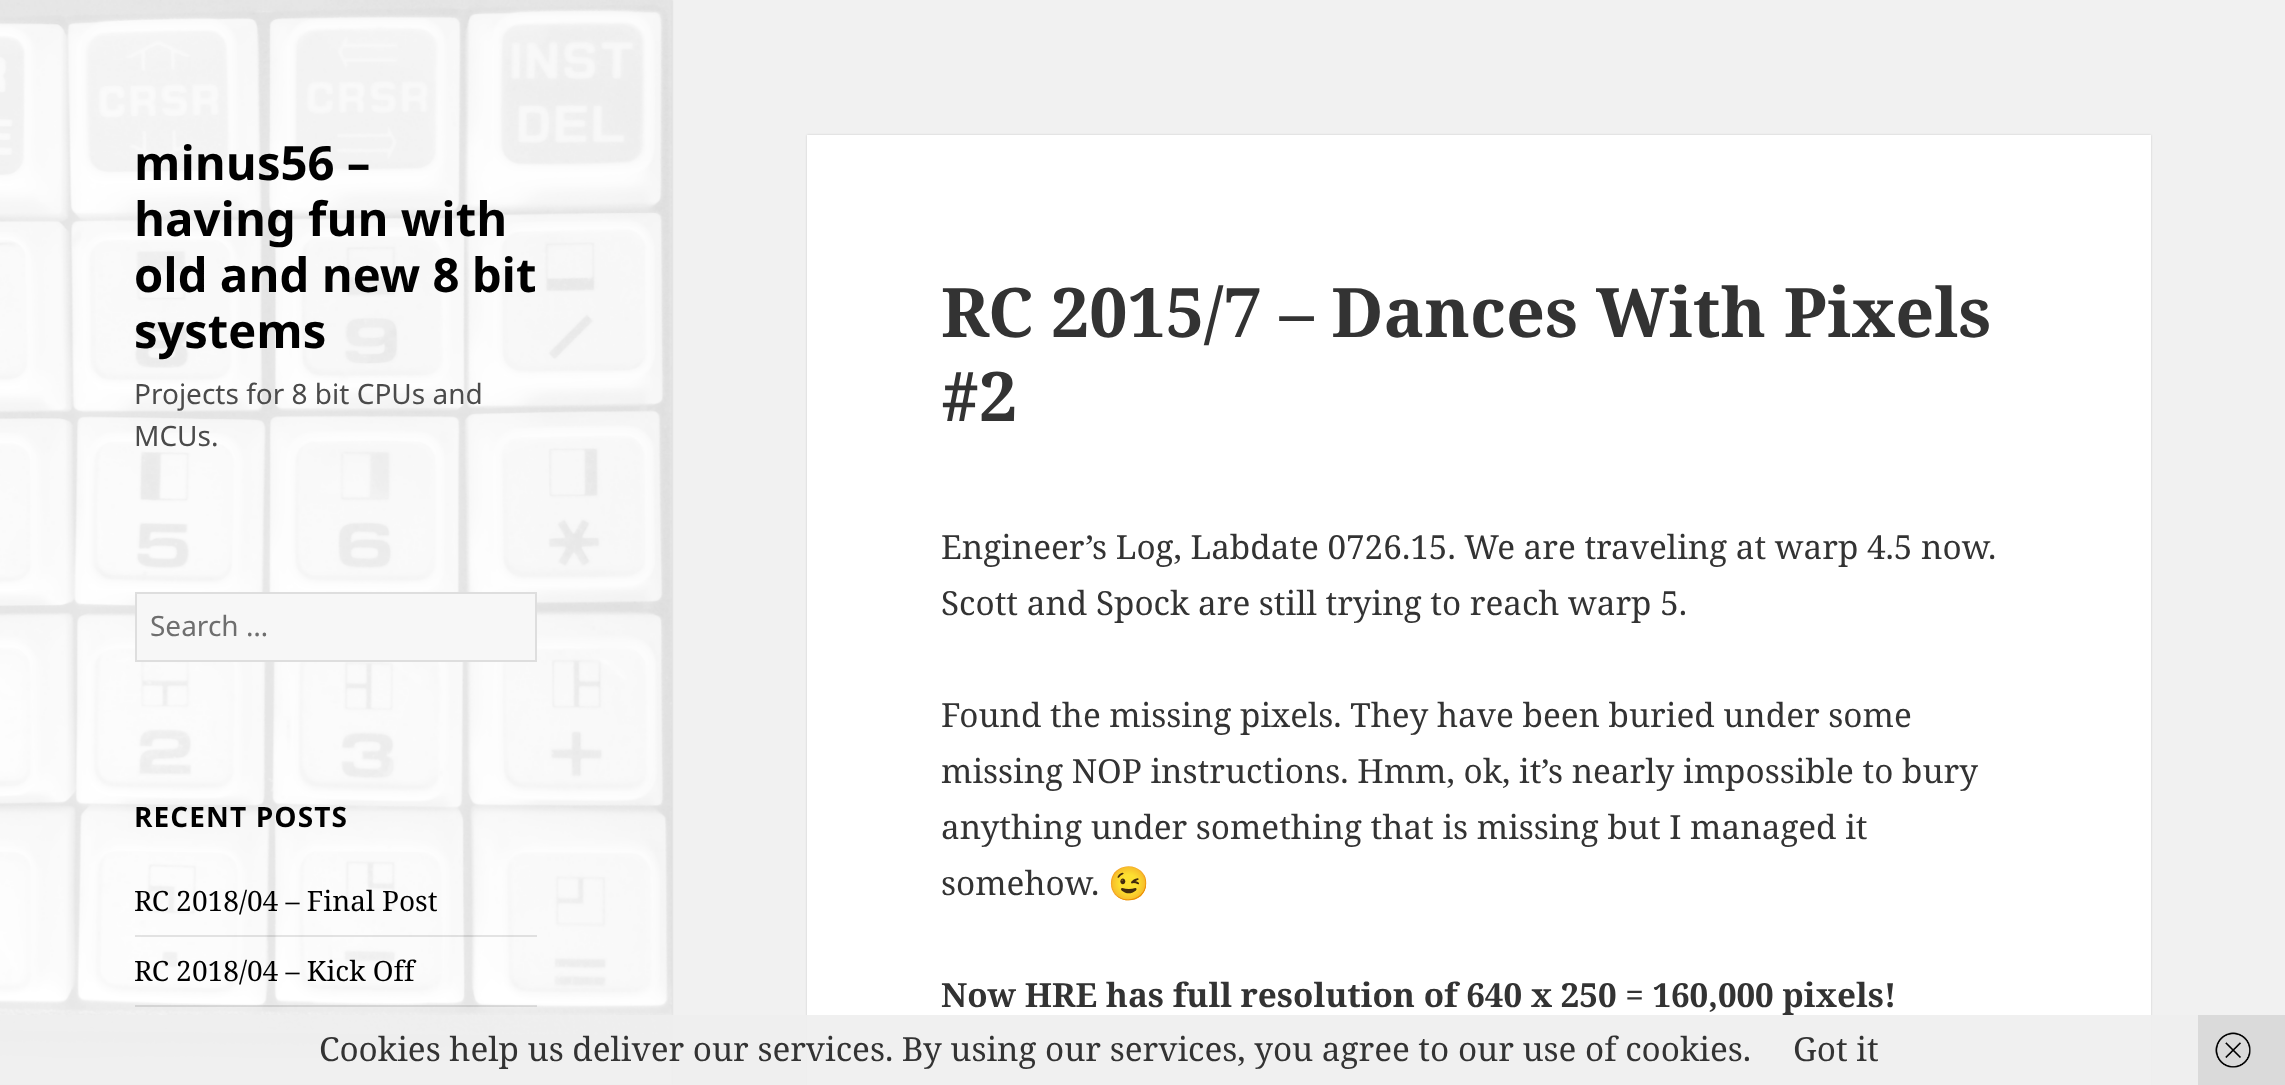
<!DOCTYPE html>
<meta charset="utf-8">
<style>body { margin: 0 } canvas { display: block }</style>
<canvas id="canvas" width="2285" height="1085"></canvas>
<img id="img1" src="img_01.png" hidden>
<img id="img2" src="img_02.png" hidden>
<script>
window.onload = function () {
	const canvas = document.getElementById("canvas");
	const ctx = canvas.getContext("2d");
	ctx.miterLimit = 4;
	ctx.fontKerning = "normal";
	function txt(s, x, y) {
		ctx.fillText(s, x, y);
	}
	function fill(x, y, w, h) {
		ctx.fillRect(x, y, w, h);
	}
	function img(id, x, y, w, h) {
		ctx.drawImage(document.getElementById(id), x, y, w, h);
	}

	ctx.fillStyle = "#F1F1F1";
	fill(0, 0, 2285, 1085);
	ctx.fillStyle = "rgba(0, 0, 0, 0.15)";
	ctx.filter = "blur(1px)";
	ctx.beginPath();
	ctx.rect(0, 0, 672, 1085);
	ctx.fill();
	ctx.filter = "none";
	img("img1", 0, 0, 673, 1085);
	ctx.fillStyle = "#F7F7F7";
	ctx.beginPath();
	ctx.rect(136, 593, 400, 68);
	ctx.fill();
	ctx.strokeStyle = "#DEDEDE";
	ctx.lineWidth = 2;
	ctx.stroke();
	ctx.fillStyle = "rgba(0, 0, 0, 0.1)";
	fill(135, 935, 402, 2);
	fill(135, 1005, 402, 2);
	ctx.fillStyle = "rgba(0, 0, 0, 0.15)";
	ctx.filter = "blur(1px)";
	ctx.beginPath();
	ctx.rect(807, 135, 1344, 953);
	ctx.fill();
	ctx.filter = "none";
	ctx.fillStyle = "#FFFFFF";
	fill(807, 135, 1344, 950);
	ctx.fillStyle = "rgba(238, 238, 238, 0.9)";
	fill(0, 1015, 2198, 70);
	ctx.fillStyle = "#DADADA";
	fill(2198, 1015, 87, 70);
	img("img2", 2215, 1032, 36, 36);
	ctx.font = "bold 47.25px Noto Sans";
	ctx.fillStyle = "#000000";
	txt("minus56 –", 134, 180);
	txt("having fun with", 134, 236);
	txt("old and new 8 bit", 134, 292);
	txt("systems", 134, 348);
	ctx.font = "28px Noto Sans";
	ctx.fillStyle = "#4B4B4B";
	txt("Projects for 8 bit CPUs and", 134, 404);
	txt("MCUs.", 134, 446);
	ctx.fillStyle = "#6E6E6E";
	txt("Search …", 150, 636);
	ctx.letterSpacing = "1.1px";
	ctx.font = "bold 28px Noto Sans";
	ctx.fillStyle = "#000000";
	txt("RECENT POSTS", 134, 827);
	ctx.letterSpacing = "0px";
	ctx.font = "28px Noto Serif";
	txt("RC 2018/04 – Final Post", 134, 911);
	txt("RC 2018/04 – Kick Off", 134, 981);
	ctx.font = "bold 68.25px Noto Serif";
	ctx.fillStyle = "#333333";
	txt("RC 2015/7 – Dances With Pixels", 941, 337);
	txt("#2", 941, 421);
	ctx.font = "33.25px Noto Serif";
	txt("Engineer’s Log, Labdate 0726.15. We are traveling at warp 4.5 now.", 941, 559);
	txt("Scott and Spock are still trying to reach warp 5.", 941, 615);
	txt("Found the missing pixels. They have been buried under some", 941, 727);
	txt("missing NOP instructions. Hmm, ok, it’s nearly impossible to bury", 941, 783);
	txt("anything under something that is missing but I managed it", 941, 839);
	txt("somehow.", 941, 895);
	ctx.font = "33.25px Noto Color Emoji";
	txt("😉", 1108, 895);
	ctx.font = "bold 33.25px Noto Serif";
	txt("Now HRE has full resolution of 640 x 250 = 160,000 pixels!", 941, 1007);
	ctx.font = "33.25px Noto Serif";
	txt("Cookies help us deliver our services. By using our services, you agree to our use of cookies.", 319, 1061);
	txt("Got it", 1793, 1061);
};
</script>
